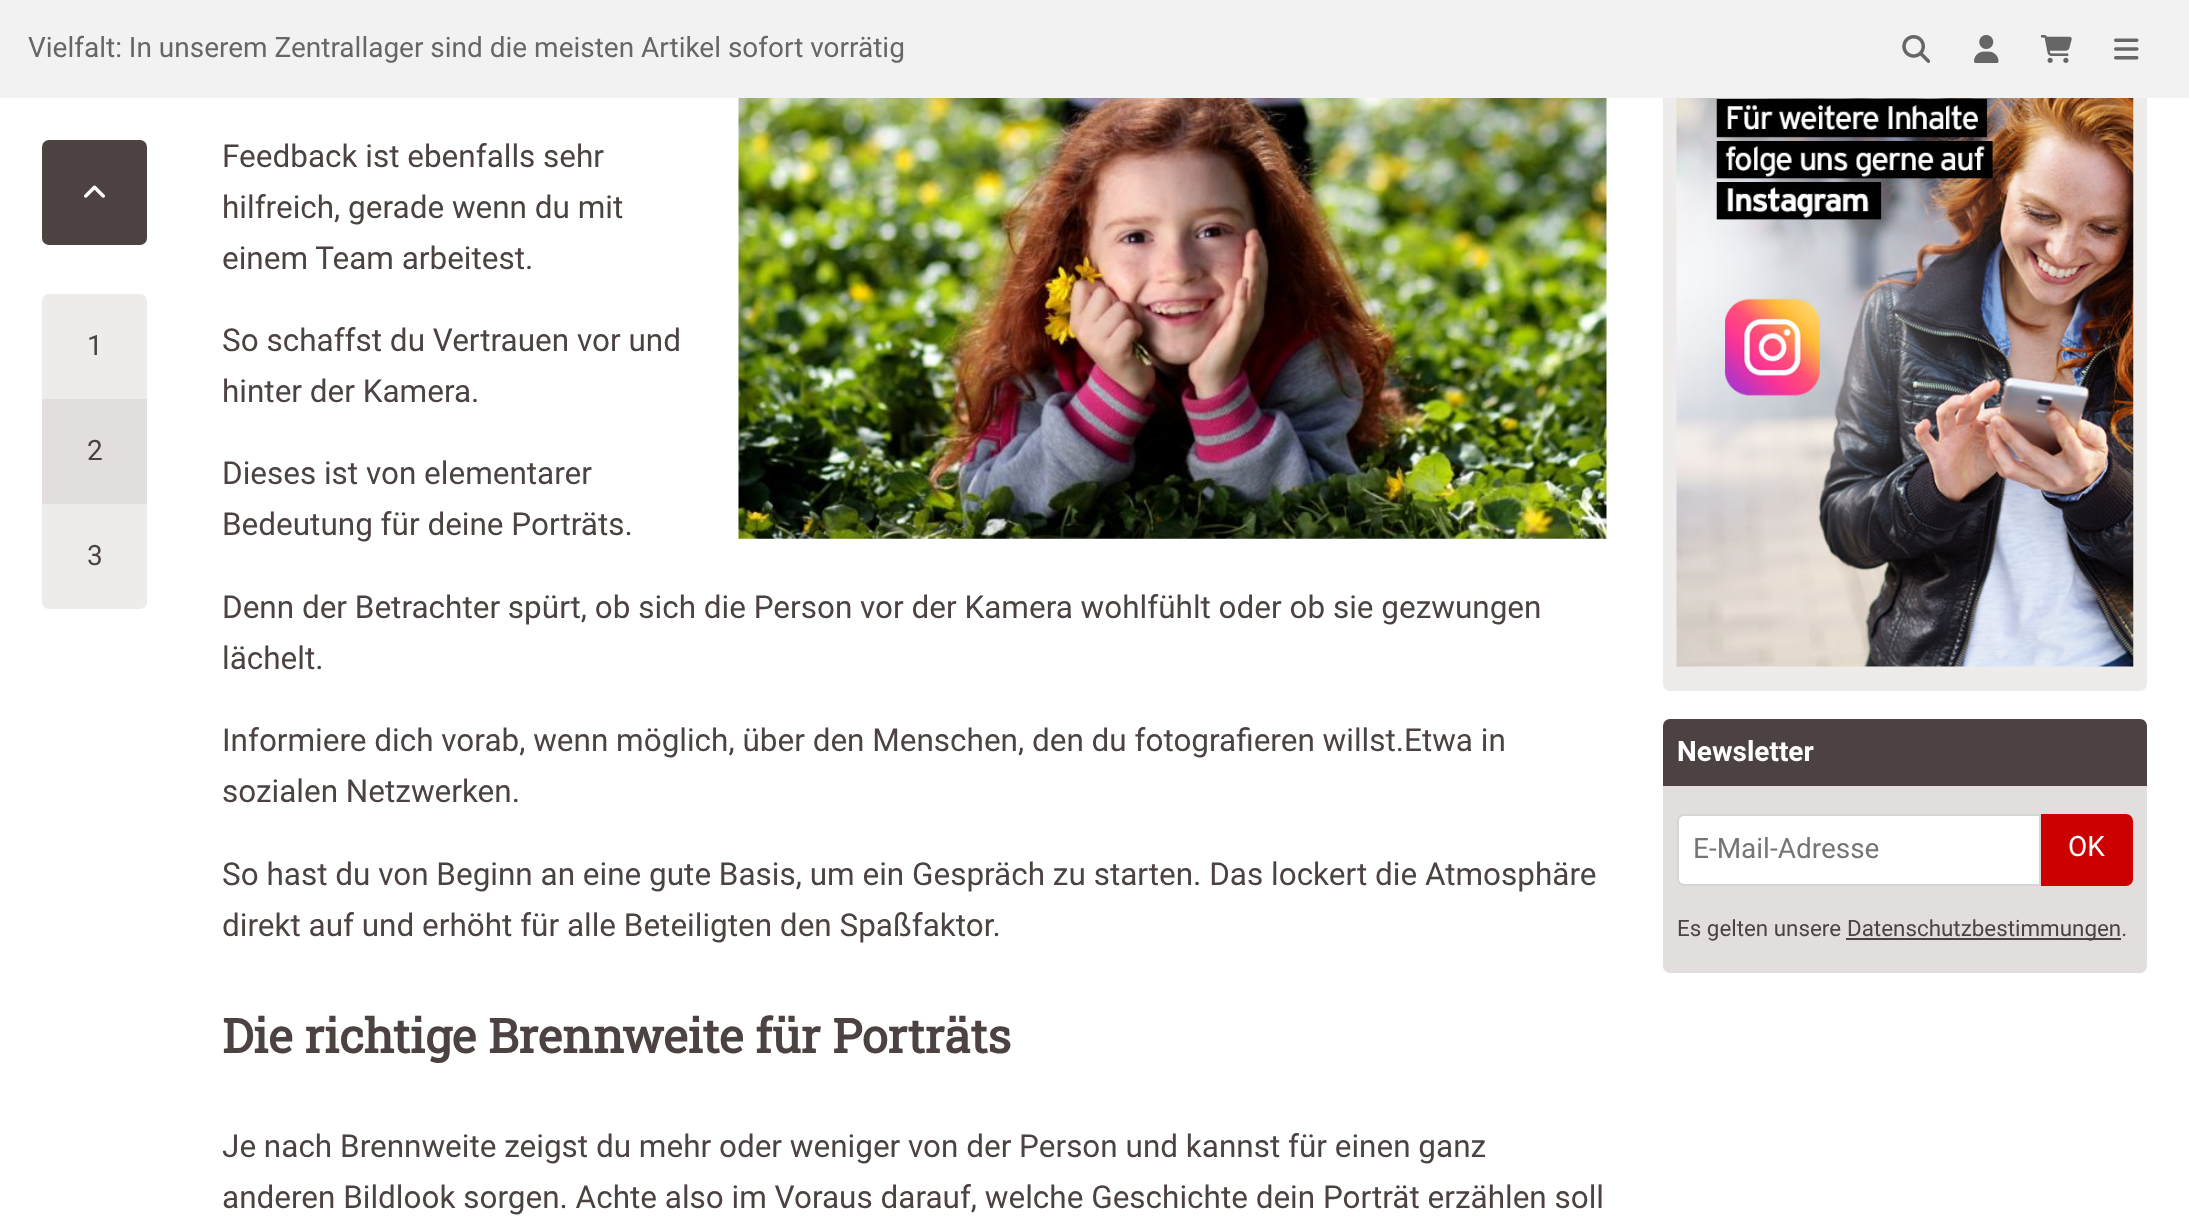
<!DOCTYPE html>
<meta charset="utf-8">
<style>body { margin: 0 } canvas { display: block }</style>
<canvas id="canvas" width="2189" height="1223"></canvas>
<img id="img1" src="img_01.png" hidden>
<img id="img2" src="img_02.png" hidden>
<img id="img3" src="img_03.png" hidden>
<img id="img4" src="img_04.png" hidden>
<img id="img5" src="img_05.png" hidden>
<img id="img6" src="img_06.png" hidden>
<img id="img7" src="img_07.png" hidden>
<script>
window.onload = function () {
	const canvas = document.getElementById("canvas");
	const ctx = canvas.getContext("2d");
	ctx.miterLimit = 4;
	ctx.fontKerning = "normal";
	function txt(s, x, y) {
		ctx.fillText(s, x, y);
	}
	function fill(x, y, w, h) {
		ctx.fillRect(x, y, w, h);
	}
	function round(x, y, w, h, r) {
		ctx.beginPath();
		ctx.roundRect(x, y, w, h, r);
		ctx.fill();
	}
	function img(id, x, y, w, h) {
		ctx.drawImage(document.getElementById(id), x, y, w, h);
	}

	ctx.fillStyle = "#FFFFFF";
	fill(0, 0, 2189, 1223);
	ctx.fillStyle = "#EEEBEB";
	ctx.beginPath();
	ctx.roundRect(1663, 14, 484, 677, [0, 0, 7, 7]);
	ctx.fill();
	ctx.fillStyle = "#F2F2F2";
	fill(0, 0, 2189, 98);
	img("img1", 1902, 35, 28, 28);
	img("img2", 1974, 35, 25, 28);
	img("img3", 2041, 35, 31, 28);
	img("img4", 2114, 38, 25, 22);
	ctx.fillStyle = "#4C4242";
	round(42, 140, 105, 105, 7);
	img("img5", 84, 185, 21, 13);
	ctx.fillStyle = "#EEEBEB";
	ctx.beginPath();
	ctx.roundRect(42, 294, 105, 105, [7, 7, 0, 0]);
	ctx.fill();
	ctx.fillStyle = "#E2DEDE";
	fill(42, 399, 105, 105);
	ctx.fillStyle = "#EEEBEB";
	ctx.beginPath();
	ctx.roundRect(42, 504, 105, 105, [0, 0, 7, 7]);
	ctx.fill();
	img("img6", 738, 98, 869, 441);
	img("img7", 1676, 98, 458, 569);
	ctx.fillStyle = "#E2DEDE";
	round(1663, 719, 484, 254, 7);
	ctx.fillStyle = "#4C4242";
	ctx.beginPath();
	ctx.roundRect(1663, 719, 484, 67, [7, 7, 0, 0]);
	ctx.fill();
	ctx.fillStyle = "#FFFFFF";
	ctx.beginPath();
	ctx.roundRect(1677, 814, 364, 72, [7, 0, 0, 7]);
	ctx.fill();
	ctx.beginPath();
	ctx.roundRect(1678, 815, 362, 70, [6, 0, 0, 6]);
	ctx.strokeStyle = "rgba(0, 0, 0, 0.16)";
	ctx.lineWidth = 2;
	ctx.stroke();
	ctx.fillStyle = "#CC0000";
	ctx.beginPath();
	ctx.roundRect(2041, 814, 92, 72, [0, 7, 7, 0]);
	ctx.fill();
	ctx.fillStyle = "#4C4242";
	fill(1846, 938, 275, 2);
	ctx.font = "28px Roboto";
	ctx.fillStyle = "#666666";
	txt("Vielfalt: In unserem Zentrallager sind die meisten Artikel sofort vorrätig", 28, 57);
	ctx.fillStyle = "#4C4242";
	txt("1", 87, 355);
	txt("2", 87, 460);
	txt("3", 87, 565);
	ctx.font = "31.5px Roboto";
	txt("Feedback ist ebenfalls sehr", 222, 167);
	txt("hilfreich, gerade wenn du mit", 222, 218);
	txt("einem Team arbeitest.", 222, 269);
	txt("So schaffst du Vertrauen vor und", 222, 351);
	txt("hinter der Kamera.", 222, 402);
	txt("Dieses ist von elementarer", 222, 484);
	txt("Bedeutung für deine Porträts.", 222, 535);
	txt("Denn der Betrachter spürt, ob sich die Person vor der Kamera wohlfühlt oder ob sie gezwungen", 222, 618);
	txt("lächelt.", 222, 669);
	txt("Informiere dich vorab, wenn möglich, über den Menschen, den du fotografieren willst.Etwa in", 222, 751);
	txt("sozialen Netzwerken.", 222, 802);
	txt("So hast du von Beginn an eine gute Basis, um ein Gespräch zu starten. Das lockert die Atmosphäre", 222, 885);
	txt("direkt auf und erhöht für alle Beteiligten den Spaßfaktor.", 222, 936);
	ctx.font = "bold 47.25px Roboto Slab";
	txt("Die richtige Brennweite für Porträts", 222, 1053);
	ctx.font = "31.5px Roboto";
	txt("Je nach Brennweite zeigst du mehr oder weniger von der Person und kannst für einen ganz", 222, 1157);
	txt("anderen Bildlook sorgen. Achte also im Voraus darauf, welche Geschichte dein Porträt erzählen soll", 222, 1208);
	ctx.font = "bold 28px Roboto";
	ctx.fillStyle = "#FFFFFF";
	txt("Newsletter", 1677, 761);
	ctx.font = "28px Roboto";
	ctx.fillStyle = "#757575";
	txt("E-Mail-Adresse", 1693, 858);
	ctx.fillStyle = "#FFFFFF";
	txt("OK", 2068, 856);
	ctx.font = "22.4px Roboto";
	ctx.fillStyle = "#4C4242";
	txt("Es gelten unsere", 1677, 936);
	txt("Datenschutzbestimmungen.", 1847, 936);
};
</script>
